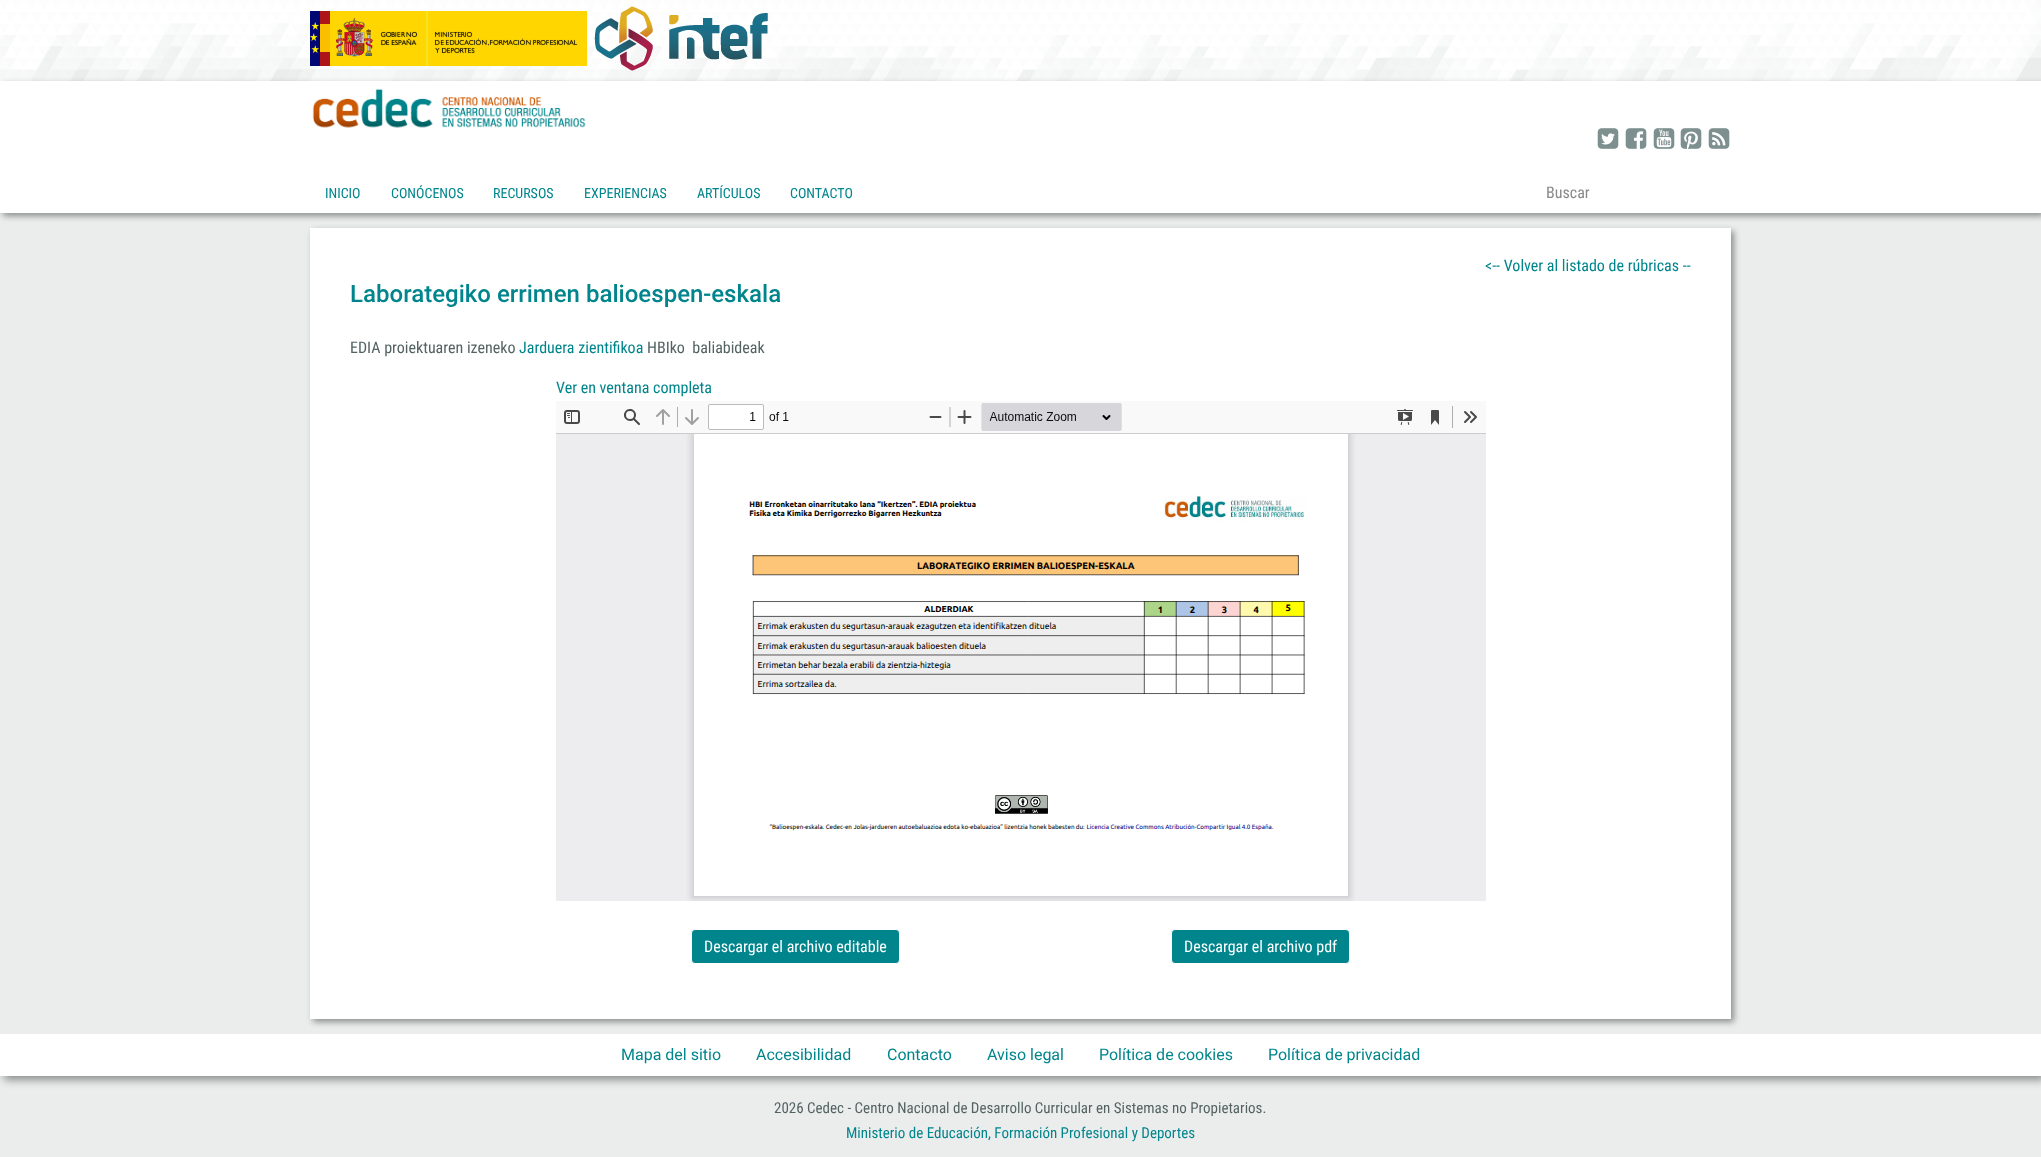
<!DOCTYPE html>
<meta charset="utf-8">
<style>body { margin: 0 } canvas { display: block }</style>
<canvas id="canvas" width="2041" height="1157"></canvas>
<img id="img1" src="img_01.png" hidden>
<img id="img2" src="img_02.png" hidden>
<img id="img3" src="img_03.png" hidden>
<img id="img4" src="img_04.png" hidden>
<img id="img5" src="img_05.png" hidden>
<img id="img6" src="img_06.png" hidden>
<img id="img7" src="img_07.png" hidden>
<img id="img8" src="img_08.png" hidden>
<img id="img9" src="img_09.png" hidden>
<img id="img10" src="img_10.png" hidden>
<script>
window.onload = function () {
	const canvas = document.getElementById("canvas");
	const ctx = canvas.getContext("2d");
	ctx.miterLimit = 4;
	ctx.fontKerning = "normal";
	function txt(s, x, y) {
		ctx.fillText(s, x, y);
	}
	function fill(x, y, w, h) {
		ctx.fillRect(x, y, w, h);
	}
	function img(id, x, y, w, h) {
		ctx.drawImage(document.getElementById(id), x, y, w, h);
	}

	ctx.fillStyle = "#EBEDED";
	fill(0, 0, 2041, 1157);
	img("img1", 0, 0, 2041, 81);
	img("img2", 310, 11, 277, 55);
	img("img3", 594, 6, 174, 65);
	ctx.fillStyle = "rgba(0, 0, 0, 0.4)";
	ctx.filter = "blur(3px)";
	ctx.beginPath();
	ctx.rect(3, 84, 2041, 132);
	ctx.fill();
	ctx.filter = "none";
	ctx.fillStyle = "#FFFFFF";
	fill(0, 81, 2041, 132);
	img("img4", 312, 88, 274, 40);
	img("img5", 1597, 128, 22, 21);
	img("img6", 1625, 128, 22, 21);
	img("img7", 1653, 128, 22, 21);
	img("img8", 1680, 128, 22, 21);
	img("img9", 1708, 128, 22, 21);
	ctx.fillStyle = "rgba(0, 0, 0, 0.4)";
	ctx.filter = "blur(3px)";
	ctx.beginPath();
	ctx.rect(313, 231, 1421, 791);
	ctx.fill();
	ctx.filter = "none";
	ctx.fillStyle = "#FFFFFF";
	fill(310, 228, 1421, 791);
	img("img10", 556, 401, 930, 500);
	ctx.fillStyle = "#00858C";
	ctx.beginPath();
	ctx.roundRect(691.5, 929.5, 208, 34, 3.5);
	ctx.fill();
	ctx.strokeStyle = "#FFFFFF";
	ctx.stroke();
	ctx.beginPath();
	ctx.roundRect(1171.5, 929.5, 178, 34, 3.5);
	ctx.fill();
	ctx.stroke();
	ctx.save();
	ctx.beginPath();
	ctx.rect(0, 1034, 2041, 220);
	ctx.clip();
	ctx.fillStyle = "rgba(0, 0, 0, 0.4)";
	ctx.filter = "blur(4px)";
	ctx.beginPath();
	ctx.rect(4, 1038, 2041, 42);
	ctx.fill();
	ctx.filter = "none";
	ctx.restore();
	ctx.fillStyle = "#FFFFFF";
	fill(0, 1034, 2041, 42);
	ctx.font = "14px Roboto Condensed";
	ctx.fillStyle = "#00858C";
	txt("INICIO", 325, 198);
	txt("CONÓCENOS", 391, 198);
	txt("RECURSOS", 493, 198);
	txt("EXPERIENCIAS", 584, 198);
	txt("ARTÍCULOS", 697, 198);
	txt("CONTACTO", 790, 198);
	ctx.font = "16px Roboto Condensed";
	ctx.fillStyle = "#888888";
	txt("Buscar", 1546, 198);
	ctx.fillStyle = "#00858C";
	txt("<-- Volver al listado de rúbricas --", 1485, 271);
	ctx.font = "500 24px Roboto";
	txt("Laborategiko errimen balioespen-eskala", 350, 302);
	ctx.font = "16px Roboto Condensed";
	ctx.fillStyle = "#546262";
	txt("EDIA proiektuaren izeneko", 350, 353);
	ctx.fillStyle = "#00858C";
	txt("Jarduera zientifikoa", 519, 353);
	ctx.fillStyle = "#546262";
	txt("HBIko  baliabideak", 647, 353);
	ctx.fillStyle = "#00858C";
	txt("Ver en ventana completa", 556, 393);
	ctx.fillStyle = "#FFFFFF";
	txt("Descargar el archivo editable", 704, 952);
	txt("Descargar el archivo pdf", 1184, 952);
	ctx.font = "16px Roboto";
	ctx.fillStyle = "#00858C";
	txt("Mapa del sitio", 621, 1060);
	txt("Accesibilidad", 756, 1060);
	txt("Contacto", 887, 1060);
	txt("Aviso legal", 987, 1060);
	txt("Política de cookies", 1099, 1060);
	txt("Política de privacidad", 1268, 1060);
	ctx.font = "15px Roboto Condensed";
	ctx.fillStyle = "#546262";
	txt("2026 Cedec - Centro Nacional de Desarrollo Curricular en Sistemas no Propietarios.", 774, 1113);
	ctx.fillStyle = "#00858C";
	txt("Ministerio de Educación, Formación Profesional y Deportes", 846, 1138);
};
</script>
